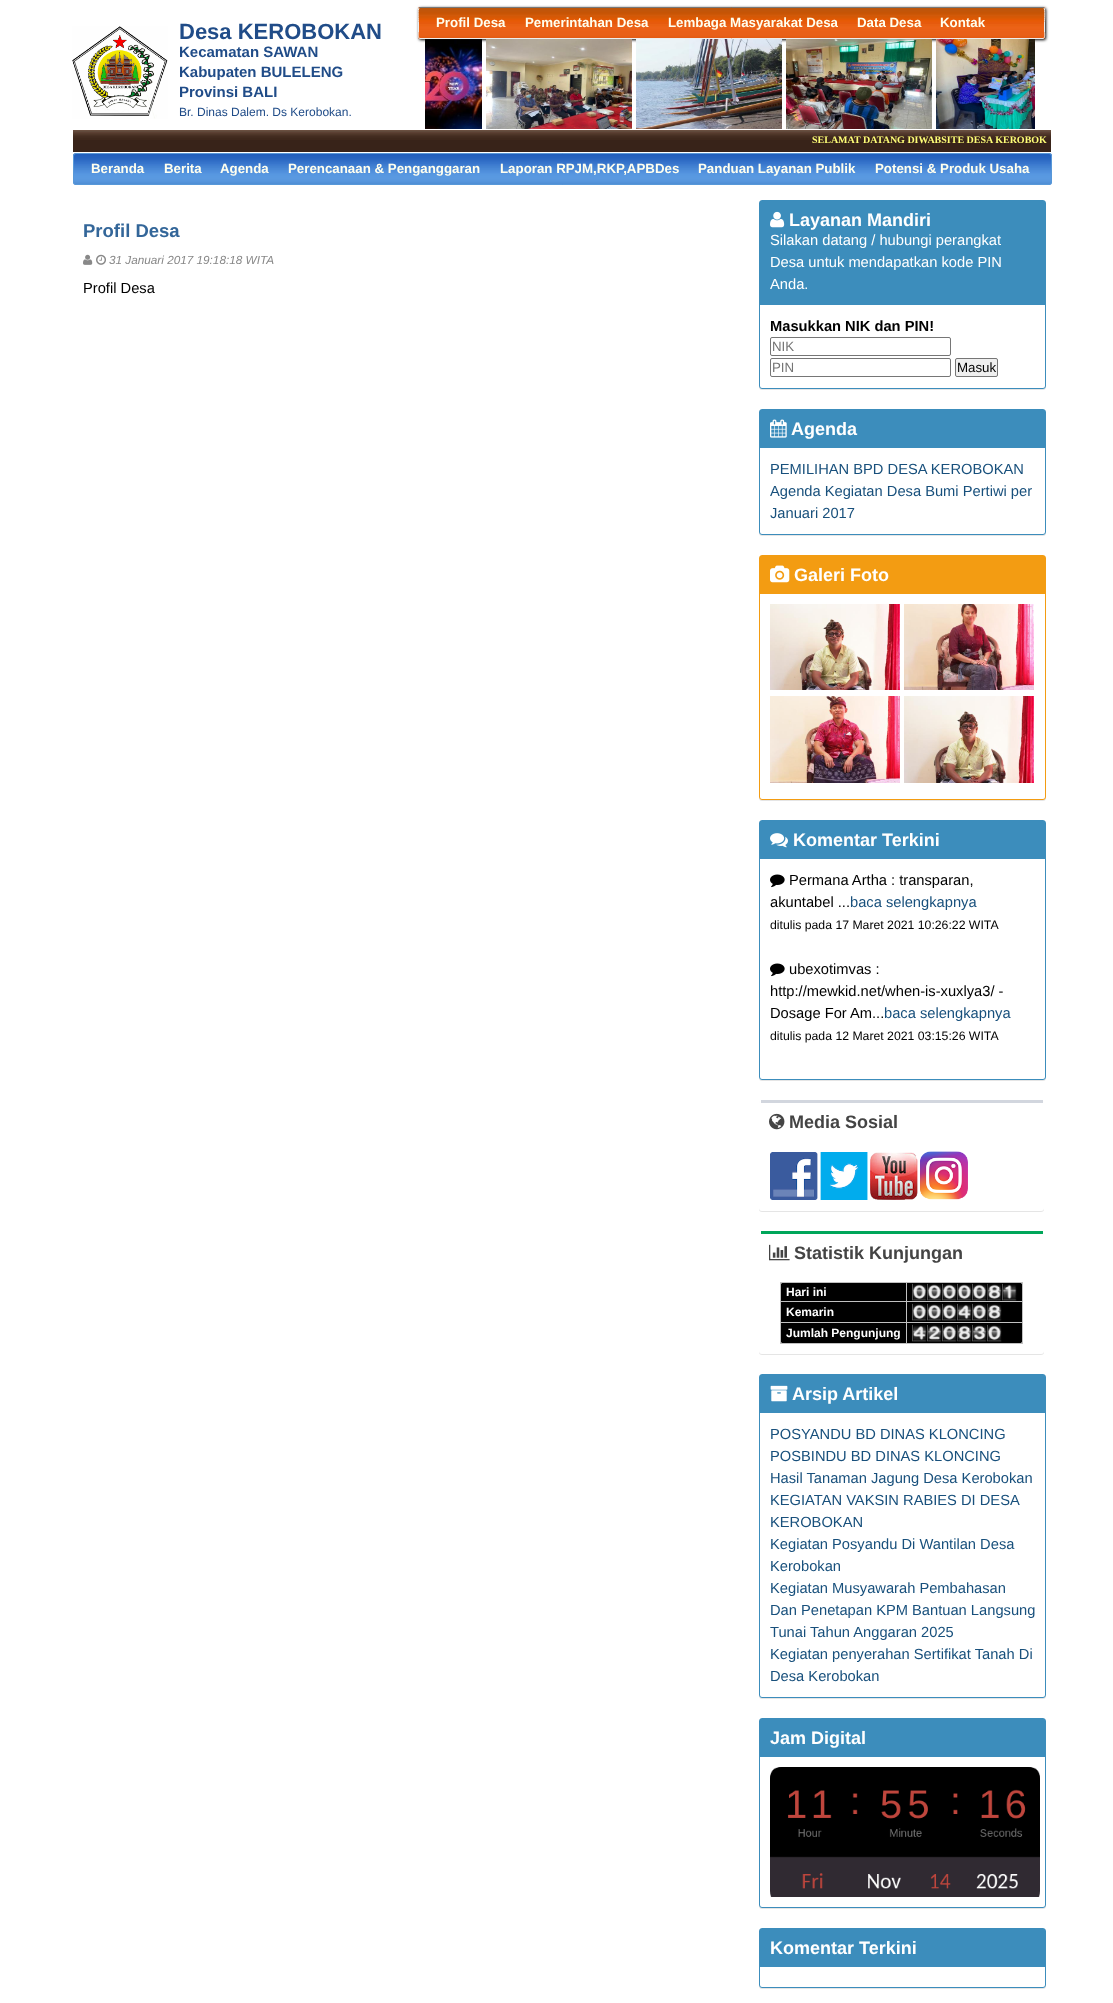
<!DOCTYPE html>
<meta charset="utf-8">
<style>body { margin: 0 } canvas { display: block }</style>
<canvas id="canvas" width="1113" height="2003"></canvas>
<img id="img1" src="img_01.png" hidden>
<img id="img2" src="img_02.png" hidden>
<img id="img3" src="img_03.png" hidden>
<img id="img4" src="img_04.png" hidden>
<img id="img5" src="img_05.png" hidden>
<img id="img6" src="img_06.png" hidden>
<img id="img7" src="img_07.png" hidden>
<img id="img8" src="img_08.png" hidden>
<img id="img9" src="img_09.png" hidden>
<img id="img10" src="img_10.png" hidden>
<img id="img11" src="img_11.png" hidden>
<img id="img12" src="img_12.png" hidden>
<img id="img13" src="img_13.png" hidden>
<img id="img14" src="img_14.png" hidden>
<img id="img15" src="img_15.png" hidden>
<img id="img16" src="img_16.png" hidden>
<img id="img17" src="img_17.png" hidden>
<img id="img18" src="img_18.png" hidden>
<img id="img19" src="img_19.png" hidden>
<img id="img20" src="img_20.png" hidden>
<img id="img21" src="img_21.png" hidden>
<img id="img22" src="img_22.png" hidden>
<img id="img23" src="img_23.png" hidden>
<img id="img24" src="img_24.png" hidden>
<img id="img25" src="img_25.png" hidden>
<img id="img26" src="img_26.png" hidden>
<img id="img27" src="img_27.png" hidden>
<img id="img28" src="img_28.png" hidden>
<img id="img29" src="img_29.png" hidden>
<img id="img30" src="img_30.png" hidden>
<img id="img31" src="img_31.png" hidden>
<img id="img32" src="img_32.png" hidden>
<img id="img33" src="img_33.png" hidden>
<img id="img34" src="img_34.png" hidden>
<img id="img35" src="img_35.png" hidden>
<img id="img36" src="img_36.png" hidden>
<script>
window.onload = function () {
	const canvas = document.getElementById("canvas");
	const ctx = canvas.getContext("2d");
	ctx.miterLimit = 4;
	ctx.fontKerning = "normal";
	function txt(s, x, y) {
		ctx.fillText(s, x, y);
	}
	function fill(x, y, w, h) {
		ctx.fillRect(x, y, w, h);
	}
	function round(x, y, w, h, r) {
		ctx.beginPath();
		ctx.roundRect(x, y, w, h, r);
		ctx.fill();
	}
	function img(id, x, y, w, h) {
		ctx.drawImage(document.getElementById(id), x, y, w, h);
	}

	ctx.fillStyle = "#FFFFFF";
	fill(0, 0, 1113, 2003);
	img("img1", 72, 26, 96, 93);
	ctx.fillStyle = "#000000";
	ctx.filter = "blur(1.5px)";
	ctx.beginPath();
	ctx.roundRect(419, 8, 627, 32, 2);
	ctx.fill();
	ctx.filter = "none";
	img("img2", 418, 7, 627, 32);
	ctx.beginPath();
	ctx.moveTo(419, 8);
	ctx.lineTo(420, 7.5);
	ctx.lineTo(1043, 7.5);
	ctx.lineTo(1044, 8);
	ctx.strokeStyle = "#777777";
	ctx.stroke();
	ctx.beginPath();
	ctx.moveTo(1044, 8);
	ctx.bezierCurveTo(1045.5, 9.5, 1044.5, 20.5, 1044.5, 23);
	ctx.lineTo(1044.5, 32.5);
	ctx.bezierCurveTo(1044.5, 32.5, 1045.5, 38.5, 1043, 38.5);
	ctx.lineTo(420, 38.5);
	ctx.bezierCurveTo(417.5, 38.5, 418.5, 32.5, 418.5, 32.5);
	ctx.lineTo(418.5, 23);
	ctx.bezierCurveTo(418.5, 20.5, 417.5, 9.5, 419, 8);
	ctx.strokeStyle = "#EEEEEE";
	ctx.stroke();
	img("img3", 425, 39, 57, 90);
	img("img4", 486, 39, 146, 90);
	img("img5", 636, 39, 146, 90);
	img("img6", 786, 39, 146, 90);
	img("img7", 936, 39, 99, 90);
	img("img8", 73, 130, 978, 22);
	img("img9", 73, 153, 979, 32);
	ctx.beginPath();
	ctx.roundRect(73.5, 153.5, 978, 31, 2.5);
	ctx.strokeStyle = "#5898D8";
	ctx.stroke();
	img("img10", 83, 254, 10, 11);
	img("img11", 96, 254, 10, 11);
	ctx.fillStyle = "rgba(0, 0, 0, 0.1)";
	ctx.filter = "blur(0.5px)";
	ctx.beginPath();
	ctx.roundRect(759, 201, 287, 189, 3);
	ctx.fill();
	ctx.filter = "none";
	ctx.fillStyle = "#FFFFFF";
	ctx.beginPath();
	ctx.roundRect(759.5, 200.5, 286, 188, 2.5);
	ctx.fill();
	ctx.strokeStyle = "#3C8DBC";
	ctx.stroke();
	ctx.fillStyle = "#3C8DBC";
	fill(760, 201, 285, 104);
	img("img12", 770, 211, 15, 17);
	ctx.beginPath();
	ctx.roundRect(770.5, 337.5, 180, 18, 1.5);
	ctx.strokeStyle = "#767676";
	ctx.stroke();
	ctx.beginPath();
	ctx.roundRect(770.5, 358.5, 180, 18, 1.5);
	ctx.stroke();
	ctx.fillStyle = "#EFEFEF";
	ctx.beginPath();
	ctx.roundRect(955.5, 358.5, 42, 18, 1.5);
	ctx.fill();
	ctx.stroke();
	ctx.fillStyle = "rgba(0, 0, 0, 0.1)";
	ctx.filter = "blur(0.5px)";
	ctx.beginPath();
	ctx.roundRect(759, 410, 287, 126, 3);
	ctx.fill();
	ctx.filter = "none";
	ctx.fillStyle = "#FFFFFF";
	ctx.beginPath();
	ctx.roundRect(759.5, 409.5, 286, 125, 2.5);
	ctx.fill();
	ctx.strokeStyle = "#3C8DBC";
	ctx.stroke();
	ctx.fillStyle = "#3C8DBC";
	fill(760, 410, 285, 38);
	img("img13", 770, 419, 17, 19);
	ctx.fillStyle = "rgba(0, 0, 0, 0.1)";
	ctx.filter = "blur(0.5px)";
	ctx.beginPath();
	ctx.roundRect(759, 556, 287, 245, 3);
	ctx.fill();
	ctx.filter = "none";
	ctx.fillStyle = "#FFFFFF";
	ctx.beginPath();
	ctx.roundRect(759.5, 555.5, 286, 244, 2.5);
	ctx.fill();
	ctx.strokeStyle = "#F39C12";
	ctx.stroke();
	ctx.fillStyle = "#F39C12";
	fill(760, 556, 285, 38);
	img("img14", 770, 565, 20, 18);
	img("img15", 770, 604, 130, 86);
	img("img16", 904, 604, 130, 86);
	img("img17", 770, 696, 130, 87);
	img("img18", 904, 696, 130, 87);
	ctx.fillStyle = "rgba(0, 0, 0, 0.1)";
	ctx.filter = "blur(0.5px)";
	ctx.beginPath();
	ctx.roundRect(759, 821, 287, 260, 3);
	ctx.fill();
	ctx.filter = "none";
	ctx.fillStyle = "#FFFFFF";
	ctx.beginPath();
	ctx.roundRect(759.5, 820.5, 286, 259, 2.5);
	ctx.fill();
	ctx.strokeStyle = "#3C8DBC";
	ctx.stroke();
	ctx.fillStyle = "#3C8DBC";
	fill(760, 821, 285, 38);
	img("img19", 770, 833, 18, 15);
	img("img20", 770, 874, 15, 14);
	img("img20", 770, 963, 15, 14);
	ctx.fillStyle = "rgba(0, 0, 0, 0.1)";
	ctx.filter = "blur(0.5px)";
	ctx.beginPath();
	ctx.roundRect(759, 1101, 285, 111, 3);
	ctx.fill();
	ctx.filter = "none";
	ctx.fillStyle = "#FFFFFF";
	round(759, 1100, 285, 111, 3);
	ctx.fillStyle = "#D2D6DE";
	fill(761, 1100, 282, 3);
	img("img21", 769, 1113, 16, 17);
	img("img22", 770, 1152, 48, 48);
	img("img23", 820, 1152, 48, 48);
	img("img24", 870, 1152, 48, 48);
	img("img25", 920, 1151, 48, 49);
	ctx.fillStyle = "rgba(0, 0, 0, 0.1)";
	ctx.filter = "blur(0.5px)";
	ctx.beginPath();
	ctx.roundRect(759, 1232, 285, 123, 3);
	ctx.fill();
	ctx.filter = "none";
	ctx.fillStyle = "#FFFFFF";
	round(759, 1231, 285, 123, 3);
	ctx.fillStyle = "#00A65A";
	fill(761, 1231, 282, 3);
	img("img26", 769, 1244, 21, 17);
	ctx.fillStyle = "#000000";
	round(780, 1282, 243, 62, 5);
	ctx.fillStyle = "#C0C0C0";
	fill(780, 1282, 243, 1);
	fill(1022, 1282, 1, 62);
	fill(780, 1343, 243, 1);
	fill(780, 1282, 1, 62);
	fill(906, 1322, 1, 22);
	fill(906, 1322, 117, 1);
	fill(906, 1301, 1, 22);
	fill(906, 1301, 117, 1);
	fill(906, 1282, 1, 20);
	fill(780, 1301, 127, 1);
	img("img27", 912, 1283, 15, 18);
	img("img27", 927, 1283, 15, 18);
	img("img27", 942, 1283, 15, 18);
	img("img27", 957, 1283, 15, 18);
	img("img27", 972, 1283, 15, 18);
	img("img28", 987, 1283, 15, 18);
	img("img29", 1002, 1283, 15, 18);
	fill(780, 1322, 127, 1);
	img("img27", 912, 1303, 15, 18);
	img("img27", 927, 1303, 15, 18);
	img("img27", 942, 1303, 15, 18);
	img("img30", 957, 1303, 15, 18);
	img("img27", 972, 1303, 15, 18);
	img("img31", 987, 1303, 15, 18);
	img("img30", 912, 1324, 15, 18);
	img("img32", 927, 1324, 15, 18);
	img("img27", 942, 1324, 15, 18);
	img("img28", 957, 1324, 15, 18);
	img("img33", 972, 1324, 15, 18);
	img("img34", 987, 1324, 15, 18);
	ctx.fillStyle = "rgba(0, 0, 0, 0.1)";
	ctx.filter = "blur(0.5px)";
	ctx.beginPath();
	ctx.roundRect(759, 1375, 287, 324, 3);
	ctx.fill();
	ctx.filter = "none";
	ctx.fillStyle = "#FFFFFF";
	ctx.beginPath();
	ctx.roundRect(759.5, 1374.5, 286, 323, 2.5);
	ctx.fill();
	ctx.stroke();
	ctx.fillStyle = "#3C8DBC";
	fill(760, 1375, 285, 38);
	img("img35", 770, 1385, 18, 17);
	ctx.fillStyle = "rgba(0, 0, 0, 0.1)";
	ctx.filter = "blur(0.5px)";
	ctx.beginPath();
	ctx.roundRect(759, 1719, 287, 190, 3);
	ctx.fill();
	ctx.filter = "none";
	ctx.fillStyle = "#FFFFFF";
	ctx.beginPath();
	ctx.roundRect(759.5, 1718.5, 286, 189, 2.5);
	ctx.fill();
	ctx.stroke();
	ctx.fillStyle = "#3C8DBC";
	fill(760, 1719, 285, 38);
	img("img36", 770, 1767, 270, 130);
	ctx.fillStyle = "rgba(0, 0, 0, 0.1)";
	ctx.filter = "blur(0.5px)";
	ctx.beginPath();
	ctx.roundRect(759, 1929, 287, 60, 3);
	ctx.fill();
	ctx.filter = "none";
	ctx.fillStyle = "#FFFFFF";
	ctx.beginPath();
	ctx.roundRect(759.5, 1928.5, 286, 59, 2.5);
	ctx.fill();
	ctx.stroke();
	ctx.fillStyle = "#3C8DBC";
	fill(760, 1929, 285, 38);
	ctx.font = "bold 22px Liberation Sans";
	ctx.fillStyle = "#204C88";
	txt("Desa KEROBOKAN", 179, 39);
	ctx.font = "bold 15px Liberation Sans";
	txt("Kecamatan SAWAN", 179, 57);
	txt("Kabupaten BULELENG", 179, 77);
	txt("Provinsi BALI", 179, 97);
	ctx.font = "12px Liberation Sans";
	txt("Br. Dinas Dalem. Ds Kerobokan.", 179, 116);
	ctx.font = "bold 13.3px Liberation Sans";
	ctx.fillStyle = "#FFFFEF";
	txt("Profil Desa", 436, 27);
	txt("Pemerintahan Desa", 525, 27);
	txt("Lembaga Masyarakat Desa", 668, 27);
	txt("Data Desa", 857, 27);
	txt("Kontak", 940, 27);
	ctx.font = "bold 10px Liberation Serif";
	ctx.fillStyle = "#FEFE77";
	txt("SELAMAT DATANG DIWABSITE DESA KEROBOK", 812, 143);
	ctx.font = "bold 13.3px Liberation Sans";
	ctx.fillStyle = "#FFFFEF";
	txt("Beranda", 91, 173);
	txt("Berita", 164, 173);
	txt("Agenda", 220, 173);
	txt("Perencanaan & Penganggaran", 288, 173);
	txt("Laporan RPJM,RKP,APBDes", 500, 173);
	txt("Panduan Layanan Publik", 698, 173);
	txt("Potensi & Produk Usaha", 875, 173);
	ctx.font = "bold 18.5px Liberation Sans";
	ctx.fillStyle = "#336699";
	txt("Profil Desa", 83, 237);
	ctx.font = "italic 11.75px Liberation Sans";
	ctx.fillStyle = "#888888";
	txt("31 Januari 2017 19:18:18 WITA", 109, 264);
	ctx.font = "14.7px Liberation Sans";
	ctx.fillStyle = "#000000";
	txt("Profil Desa", 83, 293);
	ctx.font = "bold 18px Liberation Sans";
	ctx.fillStyle = "#FFFFFF";
	txt("Layanan Mandiri", 789, 226);
	ctx.font = "14.7px Liberation Sans";
	txt("Silakan datang / hubungi perangkat", 770, 245);
	txt("Desa untuk mendapatkan kode PIN", 770, 267);
	txt("Anda.", 770, 289);
	ctx.font = "bold 14.7px Liberation Sans";
	ctx.fillStyle = "#000000";
	txt("Masukkan NIK dan PIN!", 770, 331);
	ctx.font = "13.3px Liberation Sans";
	ctx.fillStyle = "#757575";
	txt("NIK", 772, 351);
	txt("PIN", 772, 372);
	ctx.fillStyle = "#000000";
	txt("Masuk", 957, 372);
	ctx.font = "bold 18px Liberation Sans";
	ctx.fillStyle = "#FFFFFF";
	txt("Agenda", 791, 435);
	ctx.font = "14.7px Liberation Sans";
	ctx.fillStyle = "#18507C";
	txt("PEMILIHAN BPD DESA KEROBOKAN", 770, 474);
	txt("Agenda Kegiatan Desa Bumi Pertiwi per", 770, 496);
	txt("Januari 2017", 770, 518);
	ctx.font = "bold 18px Liberation Sans";
	ctx.fillStyle = "#FFFFFF";
	txt("Galeri Foto", 794, 581);
	txt("Komentar Terkini", 793, 846);
	ctx.font = "14.7px Liberation Sans";
	ctx.fillStyle = "#000000";
	txt("Permana Artha : transparan,", 789, 885);
	txt("akuntabel ...", 770, 907);
	ctx.fillStyle = "#18507C";
	txt("baca selengkapnya", 850, 907);
	ctx.font = "12.25px Liberation Sans";
	ctx.fillStyle = "#000000";
	txt("ditulis pada 17 Maret 2021 10:26:22 WITA", 770, 929);
	ctx.font = "14.7px Liberation Sans";
	txt("ubexotimvas :", 789, 974);
	txt("http://mewkid.net/when-is-xuxlya3/ -", 770, 996);
	txt("Dosage For Am...", 770, 1018);
	ctx.fillStyle = "#18507C";
	txt("baca selengkapnya", 884, 1018);
	ctx.font = "12.25px Liberation Sans";
	ctx.fillStyle = "#000000";
	txt("ditulis pada 12 Maret 2021 03:15:26 WITA", 770, 1040);
	ctx.font = "bold 18px Liberation Sans";
	ctx.fillStyle = "#444444";
	txt("Media Sosial", 789, 1128);
	txt("Statistik Kunjungan", 794, 1259);
	ctx.font = "bold 12px Liberation Sans";
	ctx.fillStyle = "#FFFFFF";
	txt("Hari ini", 786, 1296);
	txt("Kemarin", 786, 1316);
	txt("Jumlah Pengunjung", 786, 1337);
	ctx.font = "bold 18px Liberation Sans";
	txt("Arsip Artikel", 792, 1400);
	ctx.font = "14.7px Liberation Sans";
	ctx.fillStyle = "#18507C";
	txt("POSYANDU BD DINAS KLONCING", 770, 1439);
	txt("POSBINDU BD DINAS KLONCING", 770, 1461);
	txt("Hasil Tanaman Jagung Desa Kerobokan", 770, 1483);
	txt("KEGIATAN VAKSIN RABIES DI DESA", 770, 1505);
	txt("KEROBOKAN", 770, 1527);
	txt("Kegiatan Posyandu Di Wantilan Desa", 770, 1549);
	txt("Kerobokan", 770, 1571);
	txt("Kegiatan Musyawarah Pembahasan", 770, 1593);
	txt("Dan Penetapan KPM Bantuan Langsung", 770, 1615);
	txt("Tunai Tahun Anggaran 2025", 770, 1637);
	txt("Kegiatan penyerahan Sertifikat Tanah Di", 770, 1659);
	txt("Desa Kerobokan", 770, 1681);
	ctx.font = "bold 18px Liberation Sans";
	ctx.fillStyle = "#FFFFFF";
	txt("Jam Digital", 770, 1744);
	txt("Komentar Terkini", 770, 1954);
};
</script>
